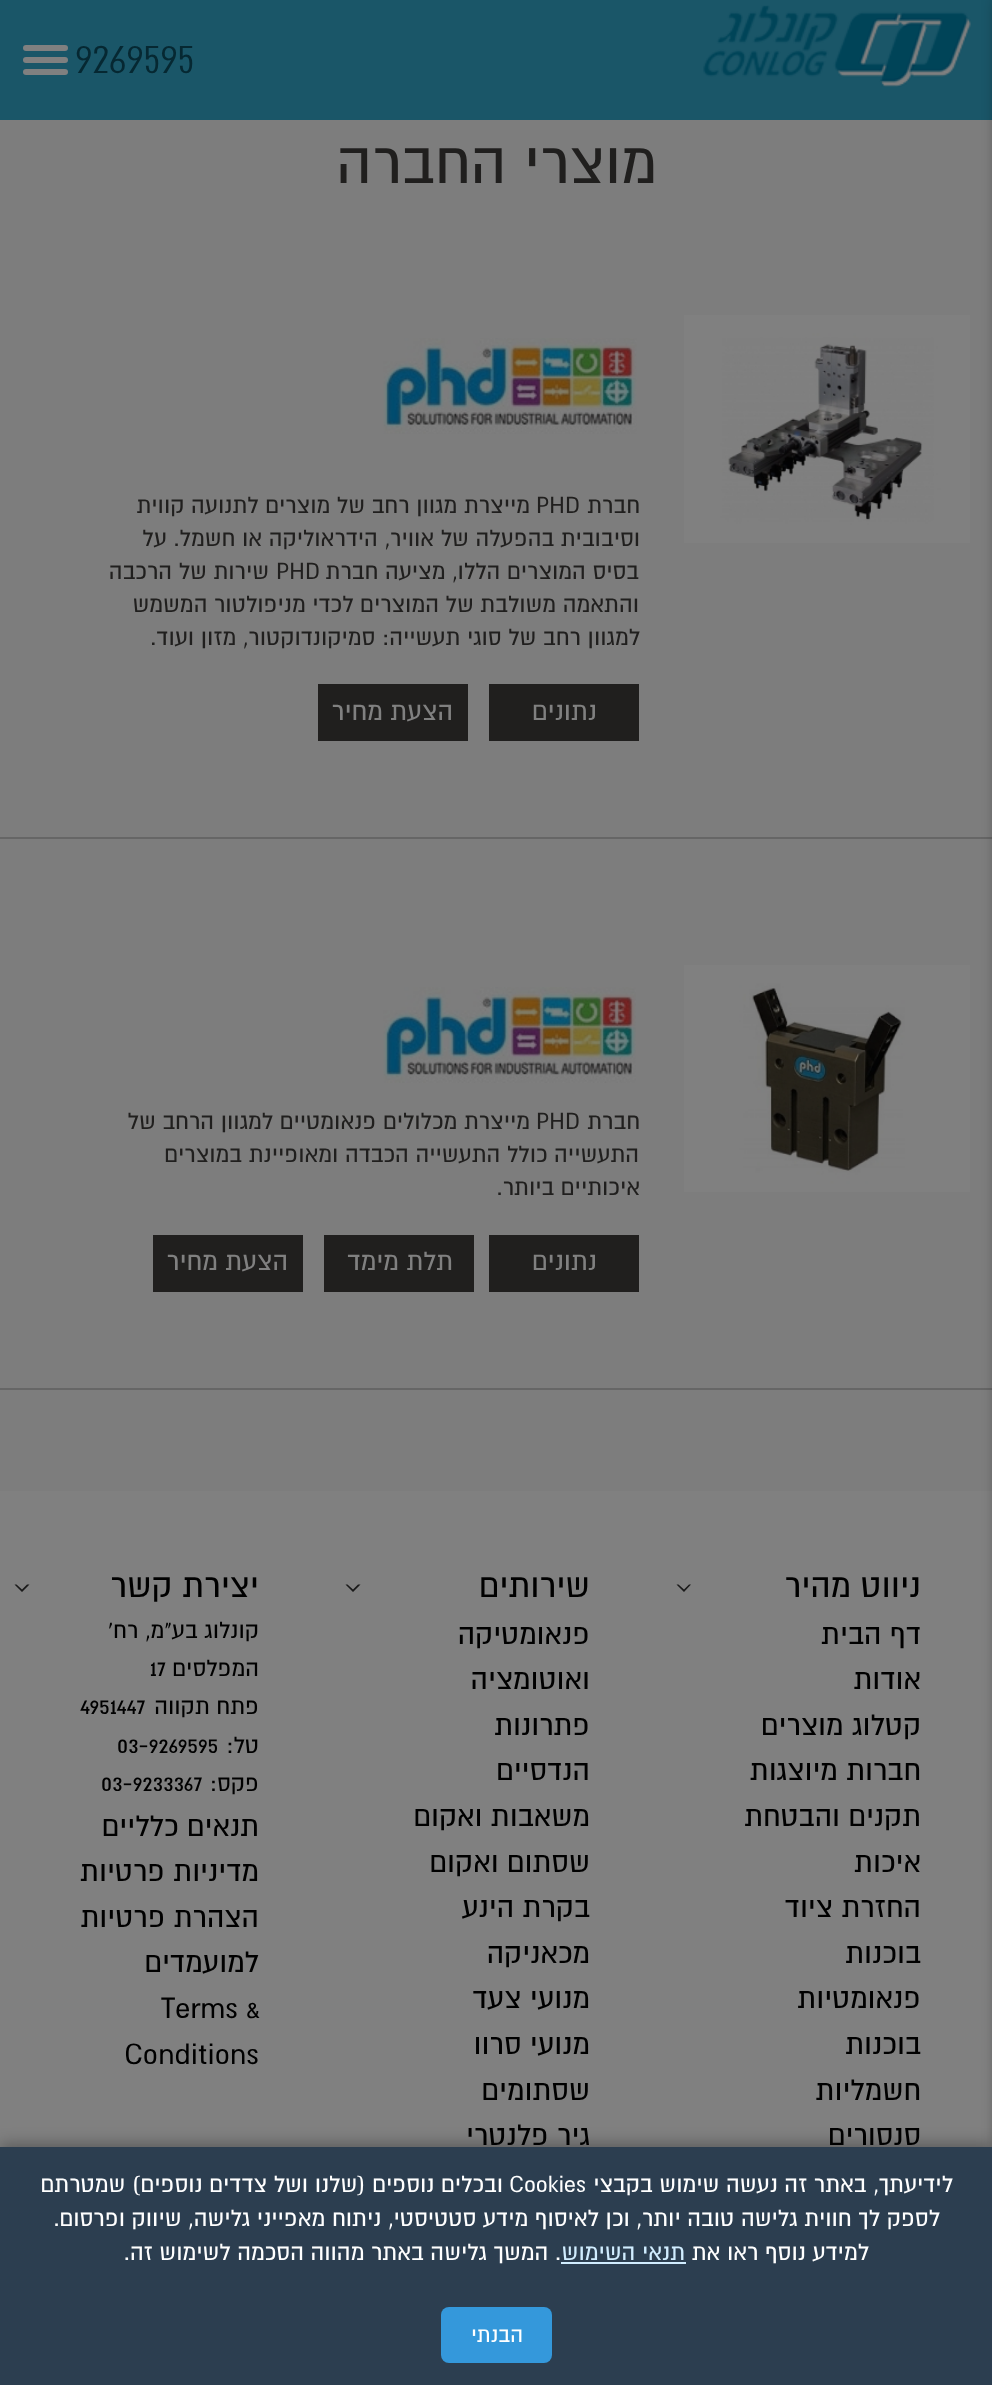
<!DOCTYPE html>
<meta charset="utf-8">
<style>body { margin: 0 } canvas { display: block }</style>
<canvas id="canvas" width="992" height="2385"></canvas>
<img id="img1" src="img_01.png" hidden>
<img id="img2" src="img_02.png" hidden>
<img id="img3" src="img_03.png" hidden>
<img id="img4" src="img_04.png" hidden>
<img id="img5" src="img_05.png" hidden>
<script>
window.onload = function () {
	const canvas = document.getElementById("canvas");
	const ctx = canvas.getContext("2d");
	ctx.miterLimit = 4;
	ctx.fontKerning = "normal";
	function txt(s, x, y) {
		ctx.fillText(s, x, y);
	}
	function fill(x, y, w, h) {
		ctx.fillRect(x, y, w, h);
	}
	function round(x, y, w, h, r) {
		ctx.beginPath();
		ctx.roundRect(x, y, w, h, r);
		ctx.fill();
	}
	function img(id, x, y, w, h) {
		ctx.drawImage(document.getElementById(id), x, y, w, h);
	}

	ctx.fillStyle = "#7D7D7D";
	fill(0, 0, 992, 2385);
	ctx.fillStyle = "#1A5668";
	fill(0, 0, 992, 120);
	ctx.fillStyle = "#666666";
	fill(0, 837, 992, 2);
	fill(0, 1388, 992, 2);
	ctx.fillStyle = "#808080";
	fill(0, 1491, 992, 656);
	ctx.fillStyle = "rgba(0, 0, 0, 0.6)";
	ctx.filter = "blur(7.5px)";
	ctx.beginPath();
	ctx.rect(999, -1, 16, 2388);
	ctx.fill();
	ctx.filter = "none";
	img("img1", 703, 5, 268, 82);
	ctx.fillStyle = "#808080";
	round(23, 57, 45, 6, 3);
	round(23, 45, 45, 6, 3);
	round(23, 69, 45, 6, 3);
	img("img2", 684, 315, 286, 228);
	img("img3", 383, 338, 254, 96);
	ctx.fillStyle = "#201F1E";
	fill(489, 684, 150, 57);
	fill(318, 684, 150, 57);
	img("img4", 684, 965, 286, 227);
	img("img5", 383, 987, 253, 96);
	fill(489, 1235, 150, 57);
	fill(324, 1235, 150, 57);
	fill(153, 1235, 150, 57);
	ctx.fillStyle = "#1A1A1A";
	ctx.beginPath();
	ctx.moveTo(691, 1584.5);
	ctx.lineTo(684, 1592);
	ctx.lineTo(684, 1589.5);
	ctx.lineTo(689, 1584.5);
	ctx.closePath();
	ctx.moveTo(684, 1592);
	ctx.lineTo(676.5, 1584.5);
	ctx.lineTo(678.5, 1584.5);
	ctx.lineTo(684, 1589.5);
	ctx.closePath();
	ctx.fill();
	ctx.beginPath();
	ctx.moveTo(360.5, 1584.5);
	ctx.lineTo(353, 1592);
	ctx.lineTo(353, 1589.5);
	ctx.lineTo(358, 1584.5);
	ctx.closePath();
	ctx.moveTo(353, 1592);
	ctx.lineTo(345.5, 1584.5);
	ctx.lineTo(347.5, 1584.5);
	ctx.lineTo(353, 1589.5);
	ctx.closePath();
	ctx.fill();
	ctx.beginPath();
	ctx.moveTo(29.5, 1584.5);
	ctx.lineTo(22, 1592);
	ctx.lineTo(22, 1589.5);
	ctx.lineTo(27, 1584.5);
	ctx.closePath();
	ctx.moveTo(22, 1592);
	ctx.lineTo(14.5, 1584.5);
	ctx.lineTo(16.5, 1584.5);
	ctx.lineTo(22, 1589.5);
	ctx.closePath();
	ctx.fill();
	ctx.fillStyle = "rgba(0, 0, 0, 0.3)";
	ctx.filter = "blur(7.5px)";
	ctx.beginPath();
	ctx.rect(0, 2144, 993, 238);
	ctx.fill();
	ctx.filter = "none";
	ctx.fillStyle = "#2C3E50";
	fill(0, 2147, 992, 238);
	ctx.fillStyle = "#D1EDFF";
	fill(561, 2262, 125, 2);
	ctx.fillStyle = "#3498DB";
	round(441, 2307, 111, 56, 8);
	ctx.font = "300 43.5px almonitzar";
	ctx.fillStyle = "#062832";
	txt("9269595", 75, 73);
	ctx.direction = "rtl";
	ctx.font = "58.5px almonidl";
	ctx.fillStyle = "#201F1E";
	txt("מוצרי החברה", 657, 183);
	ctx.font = "22.5px almonidl";
	txt("חברת", 640, 513);
	ctx.direction = "ltr";
	txt("PHD", 536, 513);
	ctx.direction = "rtl";
	txt("מייצרת מגוון רחב של מוצרים לתנועה קווית", 530, 513);
	txt("וסיבובית בהפעלה של אוויר, הידראוליקה או חשמל. על", 640, 546);
	txt("בסיס המוצרים הללו, מציעה חברת", 639, 579);
	ctx.direction = "ltr";
	txt("PHD", 276, 579);
	ctx.direction = "rtl";
	txt("שירות של הרכבה", 269, 579);
	txt("והתאמה משולבת של המוצרים לכדי מניפולטור המשמש", 639, 612);
	txt("למגוון רחב של סוגי תעשייה: סמיקונדוקטור, מזון ועוד.", 640, 645);
	ctx.font = "25.5px almonidl";
	ctx.fillStyle = "#808080";
	txt("נתונים", 597, 720);
	txt("הצעת מחיר", 453, 720);
	ctx.font = "22.5px almonidl";
	ctx.fillStyle = "#201F1E";
	txt("חברת", 640, 1129);
	ctx.direction = "ltr";
	txt("PHD", 536, 1129);
	ctx.direction = "rtl";
	txt("מייצרת מכלולים פנאומטיים למגוון הרחב של", 530, 1129);
	txt("התעשייה כולל התעשייה הכבדה ומאופיינת במוצרים", 639, 1162);
	txt("איכותיים ביותר.", 640, 1195);
	ctx.font = "25.5px almonidl";
	ctx.fillStyle = "#808080";
	txt("נתונים", 597, 1270);
	txt("תלת מימד", 453, 1270);
	txt("הצעת מחיר", 288, 1270);
	ctx.font = "33px almonidl";
	ctx.fillStyle = "#000000";
	txt("ניווט מהיר", 921, 1597);
	ctx.font = "28.5px almonidl";
	txt("דף הבית", 921, 1644);
	txt("אודות", 921, 1689);
	txt("קטלוג מוצרים", 921, 1735);
	txt("חברות מיוצגות", 921, 1780);
	txt("תקנים והבטחת", 921, 1826);
	txt("איכות", 921, 1872);
	txt("החזרת ציוד", 921, 1917);
	txt("בוכנות", 921, 1963);
	txt("פנאומטיות", 921, 2008);
	txt("בוכנות", 921, 2054);
	txt("חשמליות", 921, 2100);
	txt("סנסורים", 921, 2145);
	ctx.font = "33px almonidl";
	txt("שירותים", 590, 1597);
	ctx.font = "28.5px almonidl";
	txt("פנאומטיקה", 590, 1644);
	txt("ואוטומציה", 590, 1689);
	txt("פתרונות", 590, 1735);
	txt("הנדסיים", 590, 1780);
	txt("משאבות ואקום", 590, 1826);
	txt("שסתום ואקום", 590, 1872);
	txt("בקרת הינע", 590, 1917);
	txt("מכאניקה", 590, 1963);
	txt("מנועי צעד", 590, 2008);
	txt("מנועי סרוו", 590, 2054);
	txt("שסתומים", 590, 2100);
	txt("גיר פלנטרי", 590, 2145);
	ctx.font = "33px almonidl";
	txt("יצירת קשר", 259, 1597);
	ctx.font = "22.5px almonidl";
	txt("קונלוג בע\"מ, רח'", 259, 1638);
	txt("המפלסים", 259, 1676);
	ctx.direction = "ltr";
	txt("17", 150, 1676);
	ctx.direction = "rtl";
	txt("פתח תקווה", 259, 1714);
	ctx.direction = "ltr";
	txt("4951447", 80, 1714);
	ctx.direction = "rtl";
	txt("טל:", 259, 1753);
	ctx.direction = "ltr";
	txt("03-9269595", 117, 1753);
	ctx.direction = "rtl";
	txt("פקס:", 259, 1791);
	ctx.direction = "ltr";
	txt("03-9233367", 101, 1791);
	ctx.direction = "rtl";
	ctx.font = "28.5px almonidl";
	txt("תנאים כלליים", 259, 1836);
	txt("מדיניות פרטיות", 259, 1881);
	txt("הצהרת פרטיות", 259, 1927);
	txt("למועמדים", 259, 1972);
	ctx.direction = "ltr";
	txt("Terms &", 161, 2018);
	txt("Conditions", 124, 2064);
	ctx.direction = "rtl";
	ctx.font = "22.5px almonidl";
	ctx.fillStyle = "#FFFFFF";
	txt("לידיעתך, באתר זה נעשה שימוש בקבצי", 953, 2192);
	ctx.direction = "ltr";
	txt("Cookies", 509, 2192);
	ctx.direction = "rtl";
	txt("ובכלים נוספים (שלנו ושל צדדים נוספים) שמטרתם", 503, 2192);
	txt("לספק לך חווית גלישה טובה יותר, וכן לאיסוף מידע סטטיסטי, ניתוח מאפייני גלישה, שיווק ופרסום.", 940, 2226);
	txt("למידע נוסף ראו את", 869, 2260);
	ctx.fillStyle = "#D1EDFF";
	txt("תנאי השימוש", 685, 2260);
	ctx.fillStyle = "#FFFFFF";
	txt(". המשך גלישה באתר מהווה הסכמה לשימוש זה.", 561, 2260);
	ctx.font = "21px almonidl";
	txt("הבנתי", 523, 2342);
};
</script>
